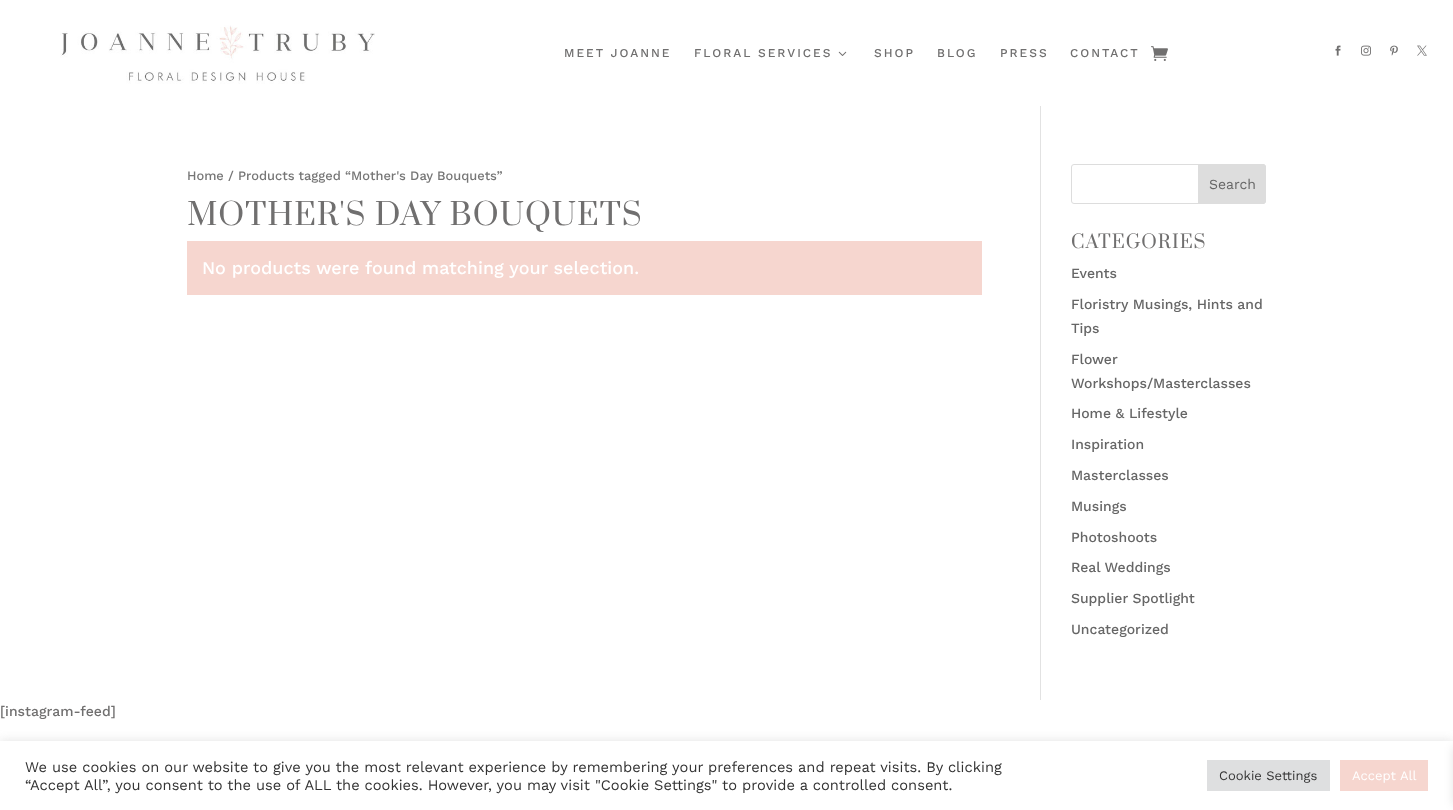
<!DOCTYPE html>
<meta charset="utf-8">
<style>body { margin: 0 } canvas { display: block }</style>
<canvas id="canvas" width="1453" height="810"></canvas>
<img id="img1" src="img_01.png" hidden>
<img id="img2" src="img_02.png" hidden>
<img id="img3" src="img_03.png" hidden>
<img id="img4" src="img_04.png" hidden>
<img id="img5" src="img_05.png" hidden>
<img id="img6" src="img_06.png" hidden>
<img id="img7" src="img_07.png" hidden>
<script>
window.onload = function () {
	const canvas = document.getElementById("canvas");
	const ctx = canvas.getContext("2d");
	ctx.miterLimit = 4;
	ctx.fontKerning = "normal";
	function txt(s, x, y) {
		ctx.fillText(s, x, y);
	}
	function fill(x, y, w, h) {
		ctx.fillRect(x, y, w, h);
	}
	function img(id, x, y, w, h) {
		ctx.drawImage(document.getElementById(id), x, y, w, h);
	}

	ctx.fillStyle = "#FFFFFF";
	fill(0, 0, 1453, 810);
	img("img1", 60, 25, 315, 59);
	img("img2", 838, 51, 9, 5);
	img("img3", 1151, 46, 17, 15);
	img("img4", 1335, 45, 6, 11);
	img("img5", 1361, 45, 10, 11);
	img("img6", 1390, 45, 8, 11);
	img("img7", 1417, 45, 10, 11);
	ctx.fillStyle = "#E2E2E2";
	fill(1040, 106, 1, 594);
	ctx.fillStyle = "#F6D6CF";
	fill(187, 241, 795, 54);
	ctx.beginPath();
	ctx.roundRect(1071.5, 164.5, 194, 39, 2.5);
	ctx.strokeStyle = "#DDDDDD";
	ctx.stroke();
	ctx.fillStyle = "#DDDDDD";
	ctx.beginPath();
	ctx.roundRect(1198.5, 164.5, 67, 39, [0, 2.5, 2.5, 0]);
	ctx.fill();
	ctx.stroke();
	ctx.fillStyle = "rgba(172, 171, 171, 0.3)";
	ctx.filter = "blur(5px)";
	ctx.beginPath();
	ctx.rect(0, 740, 1453, 69);
	ctx.fill();
	ctx.filter = "none";
	ctx.fillStyle = "#FFFFFF";
	fill(0, 741, 1453, 69);
	ctx.fillStyle = "#DEDFE0";
	fill(1207, 760, 123, 31);
	ctx.fillStyle = "#F6D6CF";
	fill(1340, 760, 88, 31);
	ctx.fillStyle = "rgba(0, 0, 0, 0.1)";
	ctx.filter = "blur(5px)";
	ctx.beginPath();
	ctx.rect(1453, 747, 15, 58);
	ctx.fill();
	ctx.filter = "none";
	ctx.letterSpacing = "2px";
	ctx.font = "500 12px Work Sans";
	ctx.fillStyle = "#706F6F";
	txt("MEET JOANNE", 564, 57);
	txt("FLORAL SERVICES", 694, 57);
	txt("SHOP", 874, 57);
	txt("BLOG", 937, 57);
	txt("PRESS", 1000, 57);
	txt("CONTACT", 1070, 57);
	ctx.letterSpacing = "0px";
	ctx.font = "500 12.9px Work Sans";
	ctx.fillStyle = "#767676";
	txt("Home / Products tagged “Mother's Day Bouquets”", 187, 180);
	ctx.letterSpacing = "1px";
	ctx.font = "30px Prata";
	ctx.fillStyle = "#706F6F";
	txt("MOTHER'S DAY BOUQUETS", 187, 225);
	ctx.letterSpacing = "0px";
	ctx.font = "500 18px Work Sans";
	ctx.fillStyle = "#FFFFFF";
	txt("No products were found matching your selection.", 202, 274);
	ctx.font = "14px Work Sans";
	ctx.fillStyle = "#666666";
	txt("Search", 1209, 189);
	ctx.letterSpacing = "1px";
	ctx.font = "18px Prata";
	ctx.fillStyle = "#706F6F";
	txt("CATEGORIES", 1071, 248);
	ctx.letterSpacing = "0px";
	ctx.font = "500 14px Work Sans";
	ctx.fillStyle = "#666666";
	txt("Events", 1071, 278);
	txt("Floristry Musings, Hints and", 1071, 309);
	txt("Tips", 1071, 333);
	txt("Flower", 1071, 364);
	txt("Workshops/Masterclasses", 1071, 388);
	txt("Home & Lifestyle", 1071, 418);
	txt("Inspiration", 1071, 449);
	txt("Masterclasses", 1071, 480);
	txt("Musings", 1071, 511);
	txt("Photoshoots", 1071, 542);
	txt("Real Weddings", 1071, 572);
	txt("Supplier Spotlight", 1071, 603);
	txt("Uncategorized", 1071, 634);
	ctx.fillStyle = "#706F6F";
	txt("[instagram-feed]", 0, 716);
	ctx.font = "14.67px Work Sans";
	ctx.fillStyle = "#333333";
	txt("We use cookies on our website to give you the most relevant experience by remembering your preferences and repeat visits. By clicking", 25, 772);
	txt("“Accept All”, you consent to the use of ALL the cookies. However, you may visit \"Cookie Settings\" to provide a controlled consent.", 25, 790);
	ctx.font = "13px Work Sans";
	txt("Cookie Settings", 1219, 780);
	ctx.fillStyle = "#FFFFFF";
	txt("Accept All", 1352, 780);
};
</script>
